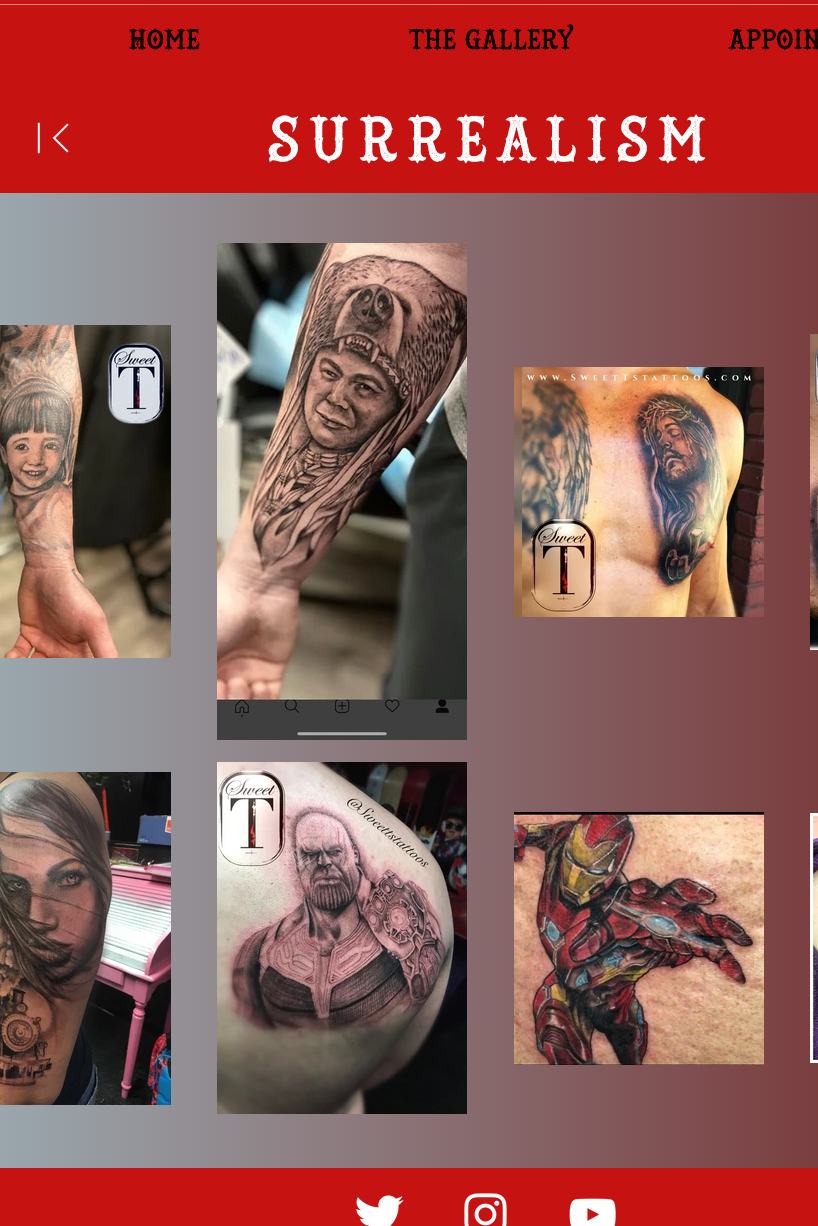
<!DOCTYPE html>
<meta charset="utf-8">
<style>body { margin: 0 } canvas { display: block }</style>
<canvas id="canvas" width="818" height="1226"></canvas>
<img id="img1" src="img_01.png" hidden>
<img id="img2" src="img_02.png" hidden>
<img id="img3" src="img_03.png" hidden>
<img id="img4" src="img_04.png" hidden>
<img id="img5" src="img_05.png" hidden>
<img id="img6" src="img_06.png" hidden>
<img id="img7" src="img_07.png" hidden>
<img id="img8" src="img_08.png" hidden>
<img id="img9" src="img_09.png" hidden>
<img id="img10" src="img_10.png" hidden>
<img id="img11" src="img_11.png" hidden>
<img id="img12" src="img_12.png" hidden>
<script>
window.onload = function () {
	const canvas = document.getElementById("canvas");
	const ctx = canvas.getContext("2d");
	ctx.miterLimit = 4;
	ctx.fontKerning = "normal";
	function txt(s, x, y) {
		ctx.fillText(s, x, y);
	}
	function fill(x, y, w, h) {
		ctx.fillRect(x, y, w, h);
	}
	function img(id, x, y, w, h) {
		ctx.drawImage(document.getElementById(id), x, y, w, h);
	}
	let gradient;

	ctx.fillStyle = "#C71212";
	fill(0, 0, 818, 1226);
	ctx.fillStyle = "#E28484";
	fill(0, 4, 818, 1);
	img("img1", 37, 122, 32, 32);
	gradient = ctx.createLinearGradient(0, 681, 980, 681);
	gradient.addColorStop(0, "#9AA7AD");
	gradient.addColorStop(1, "#742929");
	ctx.fillStyle = gradient;
	fill(0, 193, 818, 975);
	img("img2", 0, 325, 171, 333);
	img("img3", 217, 243, 250, 497);
	img("img4", 514, 367, 250, 250);
	img("img5", 810, 334, 8, 316);
	img("img6", 0, 772, 171, 333);
	img("img7", 217, 762, 250, 352);
	img("img8", 514, 812, 250, 253);
	img("img9", 810, 813, 8, 250);
	img("img10", 356, 1195, 48, 31);
	img("img11", 464, 1193, 43, 33);
	img("img12", 569, 1198, 47, 28);
	ctx.font = "41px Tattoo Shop";
	ctx.fillStyle = "#000000";
	txt("Home", 128, 49);
	txt("The Gallery", 408, 49);
	txt("Appoin", 728, 49);
	ctx.letterSpacing = "9.25px";
	ctx.font = "93px Tattoo Shop";
	ctx.fillStyle = "#FFFFFF";
	txt("Surrealism", 267, 161);
};
</script>
